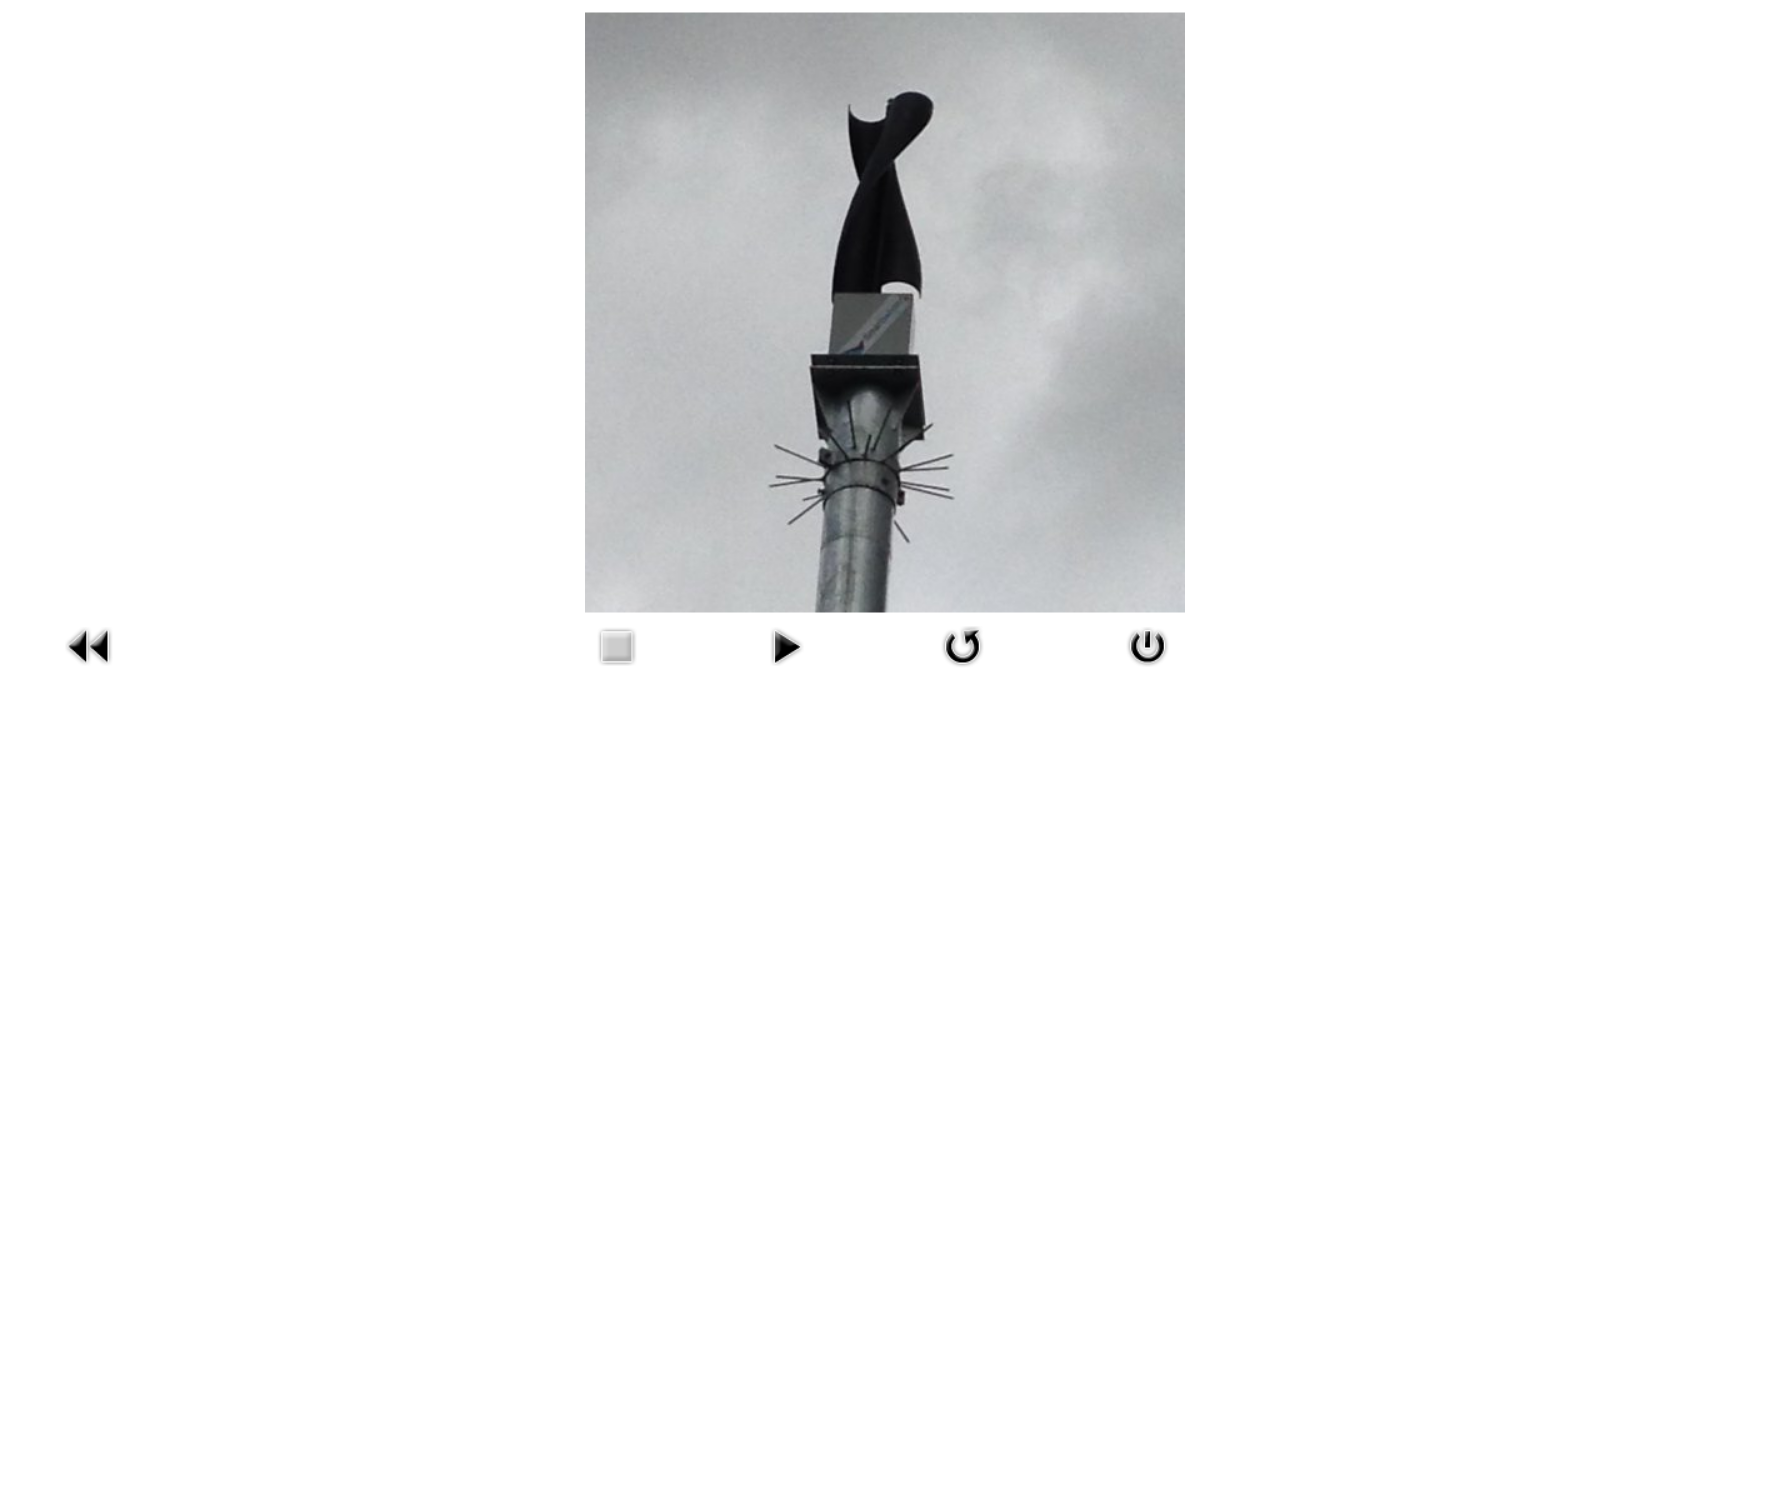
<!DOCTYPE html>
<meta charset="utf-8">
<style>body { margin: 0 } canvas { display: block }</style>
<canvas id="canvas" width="1769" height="1489"></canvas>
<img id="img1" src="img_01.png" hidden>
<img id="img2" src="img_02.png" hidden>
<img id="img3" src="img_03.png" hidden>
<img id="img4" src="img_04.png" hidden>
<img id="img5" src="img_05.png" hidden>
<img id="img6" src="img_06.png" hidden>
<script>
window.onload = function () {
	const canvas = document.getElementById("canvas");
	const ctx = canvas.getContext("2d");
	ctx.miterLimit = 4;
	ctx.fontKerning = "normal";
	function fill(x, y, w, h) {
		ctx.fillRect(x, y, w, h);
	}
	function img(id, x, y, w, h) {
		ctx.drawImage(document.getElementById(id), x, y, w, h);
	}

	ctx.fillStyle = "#FFFFFF";
	fill(0, 0, 1769, 1489);
	img("img1", 585, 12, 600, 601);
	img("img2", 65, 627, 48, 39);
	img("img3", 597, 627, 40, 39);
	img("img4", 770, 627, 34, 39);
	img("img5", 941, 626, 43, 42);
	img("img6", 1126, 627, 43, 40);
};
</script>
